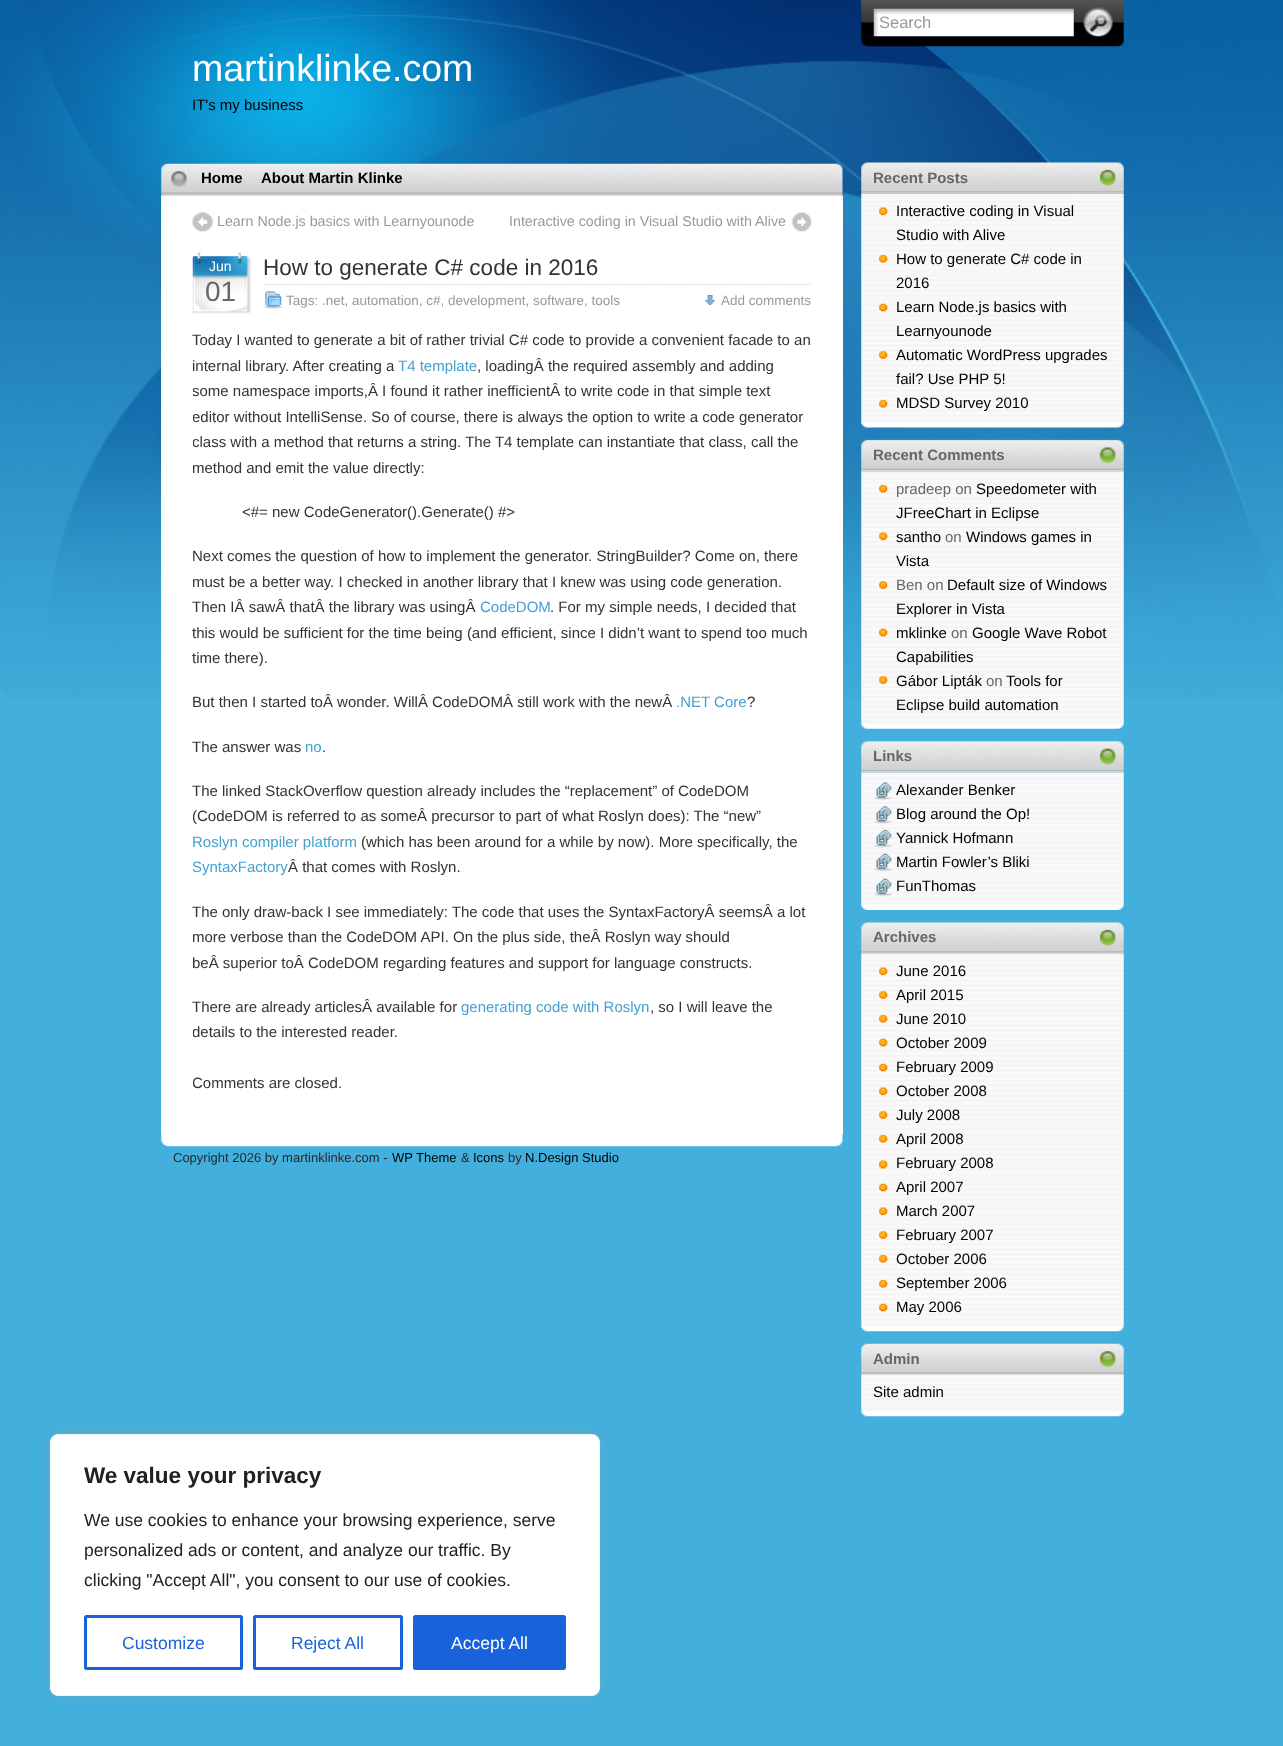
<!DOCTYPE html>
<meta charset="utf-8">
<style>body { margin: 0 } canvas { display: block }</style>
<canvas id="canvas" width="1283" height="1746"></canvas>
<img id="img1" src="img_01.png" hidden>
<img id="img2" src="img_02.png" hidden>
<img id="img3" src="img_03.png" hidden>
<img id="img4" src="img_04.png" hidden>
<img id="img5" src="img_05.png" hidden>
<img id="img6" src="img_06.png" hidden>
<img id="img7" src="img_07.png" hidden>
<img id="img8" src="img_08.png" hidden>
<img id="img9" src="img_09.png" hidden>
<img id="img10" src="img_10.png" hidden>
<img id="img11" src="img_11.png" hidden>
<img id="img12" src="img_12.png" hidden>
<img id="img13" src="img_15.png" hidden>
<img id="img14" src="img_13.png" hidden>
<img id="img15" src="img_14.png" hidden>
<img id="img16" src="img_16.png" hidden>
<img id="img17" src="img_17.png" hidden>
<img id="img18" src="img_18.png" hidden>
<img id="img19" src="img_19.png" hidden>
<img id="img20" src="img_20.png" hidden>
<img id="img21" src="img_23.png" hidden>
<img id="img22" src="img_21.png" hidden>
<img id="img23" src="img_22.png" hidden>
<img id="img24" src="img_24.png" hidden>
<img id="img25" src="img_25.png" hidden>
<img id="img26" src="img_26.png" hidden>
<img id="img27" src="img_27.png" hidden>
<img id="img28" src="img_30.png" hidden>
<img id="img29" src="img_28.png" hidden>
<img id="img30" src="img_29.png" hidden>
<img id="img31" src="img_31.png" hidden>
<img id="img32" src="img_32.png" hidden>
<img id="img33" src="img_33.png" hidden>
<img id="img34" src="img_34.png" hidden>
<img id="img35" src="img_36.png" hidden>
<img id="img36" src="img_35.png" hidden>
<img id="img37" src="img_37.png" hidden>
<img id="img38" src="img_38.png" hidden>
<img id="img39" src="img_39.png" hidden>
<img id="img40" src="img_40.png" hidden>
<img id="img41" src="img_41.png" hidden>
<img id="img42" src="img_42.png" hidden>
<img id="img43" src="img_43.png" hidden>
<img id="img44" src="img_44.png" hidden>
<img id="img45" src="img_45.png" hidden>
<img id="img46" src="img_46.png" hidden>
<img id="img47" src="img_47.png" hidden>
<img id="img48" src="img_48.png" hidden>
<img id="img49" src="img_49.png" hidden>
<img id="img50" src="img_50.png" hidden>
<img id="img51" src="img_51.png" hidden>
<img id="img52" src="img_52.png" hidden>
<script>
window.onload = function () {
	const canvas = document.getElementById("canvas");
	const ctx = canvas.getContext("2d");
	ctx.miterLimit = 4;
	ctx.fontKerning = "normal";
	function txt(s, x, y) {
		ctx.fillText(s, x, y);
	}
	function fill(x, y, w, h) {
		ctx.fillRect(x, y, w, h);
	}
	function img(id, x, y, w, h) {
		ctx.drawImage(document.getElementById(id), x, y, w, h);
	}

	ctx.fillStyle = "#42AFDC";
	fill(0, 0, 1283, 1746);
	img("img1", 0, 0, 1283, 691);
	img("img2", 3, 0, 1279, 698);
	img("img3", 861, 0, 263, 47);
	img("img4", 873, 8, 201, 29);
	img("img5", 1083, 7, 30, 30);
	img("img6", 161, 163, 682, 33);
	ctx.fillStyle = "#FFFFFF";
	fill(161, 196, 682, 938);
	img("img7", 192, 212, 22, 20);
	img("img8", 791, 212, 21, 20);
	img("img9", 192, 252, 59, 62);
	ctx.beginPath();
	ctx.moveTo(264, 284.5);
	ctx.lineTo(811, 284.5);
	ctx.strokeStyle = "#CCCCCC";
	ctx.lineWidth = 1.2;
	ctx.setLineDash([1.25, 1.25]);
	ctx.stroke();
	img("img10", 263, 291, 20, 18);
	img("img11", 705, 295, 10, 10);
	img("img12", 161, 1134, 682, 13);
	img("img13", 861, 193, 263, 235);
	img("img14", 861, 162, 263, 32);
	img("img15", 1099, 169, 18, 18);
	img("img16", 879, 207, 9, 9);
	img("img17", 879, 254, 9, 9);
	img("img18", 879, 303, 9, 9);
	img("img19", 879, 351, 9, 8);
	img("img20", 879, 399, 9, 9);
	img("img21", 861, 471, 263, 258);
	img("img22", 861, 439, 263, 33);
	img("img23", 1099, 447, 18, 17);
	img("img24", 879, 484, 9, 9);
	img("img25", 879, 532, 9, 9);
	img("img26", 879, 581, 9, 8);
	img("img27", 879, 628, 9, 9);
	img("img26", 879, 676, 9, 8);
	img("img28", 861, 772, 263, 138);
	img("img29", 861, 741, 263, 32);
	img("img30", 1099, 748, 18, 17);
	img("img31", 874, 782, 19, 18);
	img("img32", 874, 806, 19, 18);
	img("img33", 873, 829, 20, 19);
	img("img34", 873, 853, 20, 19);
	img("img34", 873, 878, 20, 19);
	img("img35", 861, 953, 263, 379);
	img("img36", 861, 922, 263, 32);
	img("img15", 1099, 929, 18, 18);
	img("img37", 879, 967, 9, 9);
	img("img38", 879, 991, 9, 8);
	img("img39", 879, 1014, 9, 9);
	img("img40", 879, 1038, 9, 9);
	img("img40", 879, 1063, 9, 9);
	img("img41", 879, 1087, 9, 9);
	img("img42", 879, 1111, 9, 8);
	img("img43", 879, 1134, 9, 9);
	img("img44", 879, 1160, 9, 9);
	img("img45", 879, 1183, 9, 9);
	img("img46", 879, 1207, 9, 9);
	img("img47", 879, 1231, 9, 8);
	img("img48", 879, 1254, 9, 9);
	img("img48", 879, 1279, 9, 9);
	img("img49", 879, 1303, 9, 9);
	img("img50", 861, 1343, 263, 32);
	img("img51", 1099, 1351, 18, 17);
	img("img52", 861, 1375, 263, 42);
	ctx.fillStyle = "rgba(172, 171, 171, 0.3)";
	ctx.filter = "blur(6px)";
	ctx.beginPath();
	ctx.roundRect(50, 1433, 550, 262, 8);
	ctx.fill();
	ctx.filter = "none";
	ctx.fillStyle = "#FFFFFF";
	ctx.beginPath();
	ctx.roundRect(50.5, 1434.5, 549, 261, 7.5);
	ctx.fill();
	ctx.strokeStyle = "#F4F4F4";
	ctx.lineWidth = 1;
	ctx.setLineDash([]);
	ctx.stroke();
	ctx.beginPath();
	ctx.roundRect(85.5, 1616.5, 156, 52, 1);
	ctx.strokeStyle = "#1863DC";
	ctx.lineWidth = 3;
	ctx.stroke();
	ctx.beginPath();
	ctx.roundRect(254.5, 1616.5, 147, 52, 1);
	ctx.stroke();
	ctx.fillStyle = "#1863DC";
	ctx.beginPath();
	ctx.roundRect(414.5, 1616.5, 150, 52, 1);
	ctx.fill();
	ctx.stroke();
	ctx.font = "16.5px Liberation Sans";
	ctx.fillStyle = "#999999";
	txt("Search", 879, 28);
	ctx.font = "37.5px Liberation Sans";
	ctx.fillStyle = "#FFFFFF";
	txt("martinklinke.com", 192, 81);
	ctx.font = "15px Liberation Sans";
	ctx.fillStyle = "#000000";
	txt("IT's my business", 192, 110);
	ctx.font = "bold 15px Liberation Sans";
	txt("Home", 201, 183);
	txt("About Martin Klinke", 261, 183);
	ctx.font = "14.25px Liberation Sans";
	ctx.fillStyle = "#999999";
	txt("Learn Node.js basics with Learnyounode", 217, 226);
	txt("Interactive coding in Visual Studio with Alive", 509, 226);
	ctx.font = "14px Liberation Sans";
	ctx.fillStyle = "#FFFFFF";
	txt("Jun", 209, 271);
	ctx.font = "28px Liberation Sans";
	ctx.fillStyle = "#666666";
	txt("01", 205, 301);
	ctx.font = "22.5px Liberation Sans";
	ctx.fillStyle = "#333333";
	txt("How to generate C# code in 2016", 263, 275);
	ctx.font = "13.5px Liberation Sans";
	ctx.fillStyle = "#999999";
	txt("Tags: .net, automation, c#, development, software, tools", 286, 305);
	txt("Add comments", 721, 305);
	ctx.font = "15px Liberation Sans";
	ctx.fillStyle = "#333333";
	txt("Today I wanted to generate a bit of rather trivial C# code to provide a convenient facade to an", 192, 345);
	ctx.save();
	ctx.beginPath();
	ctx.rect(193, 253, 618, 862);
	ctx.clip();
	txt("internal library. After creating a", 192, 371);
	ctx.restore();
	ctx.fillStyle = "#44A1D0";
	txt("T4 template", 398, 371);
	ctx.fillStyle = "#333333";
	txt(", loadingÂ the required assembly and adding", 477, 371);
	ctx.save();
	ctx.beginPath();
	ctx.rect(193, 253, 618, 862);
	ctx.clip();
	txt("some namespace imports,Â I found it rather inefficientÂ to write code in that simple text", 192, 396);
	txt("editor without IntelliSense. So of course, there is always the option to write a code generator", 192, 422);
	txt("class with a method that returns a string. The T4 template can instantiate that class, call the", 192, 447);
	txt("method and emit the value directly:", 192, 473);
	ctx.restore();
	txt("<#= new CodeGenerator().Generate() #>", 242, 517);
	txt("Next comes the question of how to implement the generator. StringBuilder? Come on, there", 192, 561);
	ctx.save();
	ctx.beginPath();
	ctx.rect(193, 253, 618, 862);
	ctx.clip();
	txt("must be a better way. I checked in another library that I knew was using code generation.", 192, 587);
	ctx.restore();
	txt("Then IÂ sawÂ thatÂ the library was usingÂ", 192, 612);
	ctx.fillStyle = "#44A1D0";
	txt("CodeDOM", 480, 612);
	ctx.fillStyle = "#333333";
	txt(". For my simple needs, I decided that", 550, 612);
	txt("this would be sufficient for the time being (and efficient, since I didn’t want to spend too much", 192, 638);
	txt("time there).", 192, 663);
	txt("But then I started toÂ wonder. WillÂ CodeDOMÂ still work with the newÂ", 192, 707);
	ctx.fillStyle = "#44A1D0";
	txt(".NET Core", 676, 707);
	ctx.fillStyle = "#333333";
	txt("?", 747, 707);
	txt("The answer was", 192, 752);
	ctx.fillStyle = "#44A1D0";
	txt("no", 305, 752);
	ctx.fillStyle = "#333333";
	txt(".", 322, 752);
	txt("The linked StackOverflow question already includes the “replacement” of CodeDOM", 192, 796);
	ctx.save();
	ctx.beginPath();
	ctx.rect(193, 253, 618, 862);
	ctx.clip();
	txt("(CodeDOM is referred to as someÂ precursor to part of what Roslyn does): The “new”", 192, 821);
	ctx.restore();
	ctx.fillStyle = "#44A1D0";
	txt("Roslyn compiler platform", 192, 847);
	ctx.fillStyle = "#333333";
	txt("(which has been around for a while by now). More specifically, the", 361, 847);
	ctx.fillStyle = "#44A1D0";
	txt("SyntaxFactory", 192, 872);
	ctx.fillStyle = "#333333";
	txt("Â that comes with Roslyn.", 288, 872);
	txt("The only draw-back I see immediately: The code that uses the SyntaxFactoryÂ seemsÂ a lot", 192, 917);
	ctx.save();
	ctx.beginPath();
	ctx.rect(193, 253, 618, 862);
	ctx.clip();
	txt("more verbose than the CodeDOM API. On the plus side, theÂ Roslyn way should", 192, 942);
	txt("beÂ superior toÂ CodeDOM regarding features and support for language constructs.", 192, 968);
	ctx.restore();
	txt("There are already articlesÂ available for", 192, 1012);
	ctx.fillStyle = "#44A1D0";
	txt("generating code with Roslyn", 461, 1012);
	ctx.fillStyle = "#333333";
	txt(", so I will leave the", 650, 1012);
	ctx.save();
	ctx.beginPath();
	ctx.rect(193, 253, 618, 862);
	ctx.clip();
	txt("details to the interested reader.", 192, 1037);
	txt("Comments are closed.", 192, 1088);
	ctx.restore();
	ctx.font = "13px Liberation Sans";
	ctx.fillStyle = "#282828";
	txt("Copyright 2026 by martinklinke.com -", 173, 1162);
	ctx.fillStyle = "#000000";
	txt("WP Theme", 392, 1162);
	ctx.fillStyle = "#282828";
	txt("&", 461, 1162);
	ctx.fillStyle = "#000000";
	txt("Icons", 473, 1162);
	ctx.fillStyle = "#282828";
	txt("by", 508, 1162);
	ctx.fillStyle = "#000000";
	txt("N.Design Studio", 525, 1162);
	ctx.font = "bold 15px Liberation Sans";
	ctx.fillStyle = "#666666";
	txt("Recent Posts", 873, 183);
	ctx.font = "15px Liberation Sans";
	ctx.fillStyle = "#000000";
	txt("Interactive coding in Visual", 896, 216);
	txt("Studio with Alive", 896, 240);
	txt("How to generate C# code in", 896, 264);
	txt("2016", 896, 288);
	txt("Learn Node.js basics with", 896, 312);
	txt("Learnyounode", 896, 336);
	txt("Automatic WordPress upgrades", 896, 360);
	txt("fail? Use PHP 5!", 896, 384);
	txt("MDSD Survey 2010", 896, 408);
	ctx.font = "bold 15px Liberation Sans";
	ctx.fillStyle = "#666666";
	txt("Recent Comments", 873, 460);
	ctx.font = "15px Liberation Sans";
	txt("pradeep on", 896, 494);
	ctx.fillStyle = "#000000";
	txt("Speedometer with", 976, 494);
	txt("JFreeChart in Eclipse", 896, 518);
	txt("santho", 896, 542);
	ctx.fillStyle = "#666666";
	txt("on", 945, 542);
	ctx.fillStyle = "#000000";
	txt("Windows games in", 966, 542);
	txt("Vista", 896, 566);
	ctx.fillStyle = "#666666";
	txt("Ben on", 896, 590);
	ctx.fillStyle = "#000000";
	txt("Default size of Windows", 947, 590);
	txt("Explorer in Vista", 896, 614);
	txt("mklinke", 896, 638);
	ctx.fillStyle = "#666666";
	txt("on", 951, 638);
	ctx.fillStyle = "#000000";
	txt("Google Wave Robot", 972, 638);
	txt("Capabilities", 896, 662);
	txt("Gábor Lipták", 896, 686);
	ctx.fillStyle = "#666666";
	txt("on", 986, 686);
	ctx.fillStyle = "#000000";
	txt("Tools for", 1006, 686);
	txt("Eclipse build automation", 896, 710);
	ctx.font = "bold 15px Liberation Sans";
	ctx.fillStyle = "#666666";
	txt("Links", 873, 761);
	ctx.font = "15px Liberation Sans";
	ctx.fillStyle = "#000000";
	txt("Alexander Benker", 896, 795);
	txt("Blog around the Op!", 896, 819);
	txt("Yannick Hofmann", 896, 843);
	txt("Martin Fowler’s Bliki", 896, 867);
	txt("FunThomas", 896, 891);
	ctx.font = "bold 15px Liberation Sans";
	ctx.fillStyle = "#666666";
	txt("Archives", 873, 942);
	ctx.font = "15px Liberation Sans";
	ctx.fillStyle = "#000000";
	txt("June 2016", 896, 976);
	txt("April 2015", 896, 1000);
	txt("June 2010", 896, 1024);
	txt("October 2009", 896, 1048);
	txt("February 2009", 896, 1072);
	txt("October 2008", 896, 1096);
	txt("July 2008", 896, 1120);
	txt("April 2008", 896, 1144);
	txt("February 2008", 896, 1168);
	txt("April 2007", 896, 1192);
	txt("March 2007", 896, 1216);
	txt("February 2007", 896, 1240);
	txt("October 2006", 896, 1264);
	txt("September 2006", 896, 1288);
	txt("May 2006", 896, 1312);
	ctx.font = "bold 15px Liberation Sans";
	ctx.fillStyle = "#666666";
	txt("Admin", 873, 1364);
	ctx.font = "15px Liberation Sans";
	ctx.fillStyle = "#000000";
	txt("Site admin", 873, 1397);
	ctx.font = "bold 22.5px Liberation Sans";
	ctx.fillStyle = "#212121";
	txt("We value your privacy", 84, 1483);
	ctx.font = "17.5px Liberation Sans";
	txt("We use cookies to enhance your browsing experience, serve", 84, 1526);
	txt("personalized ads or content, and analyze our traffic. By", 84, 1556);
	txt("clicking \"Accept All\", you consent to our use of cookies.", 84, 1586);
	ctx.fillStyle = "#1863DC";
	txt("Customize", 122, 1649);
	txt("Reject All", 291, 1649);
	ctx.fillStyle = "#FFFFFF";
	txt("Accept All", 451, 1649);
};
</script>
